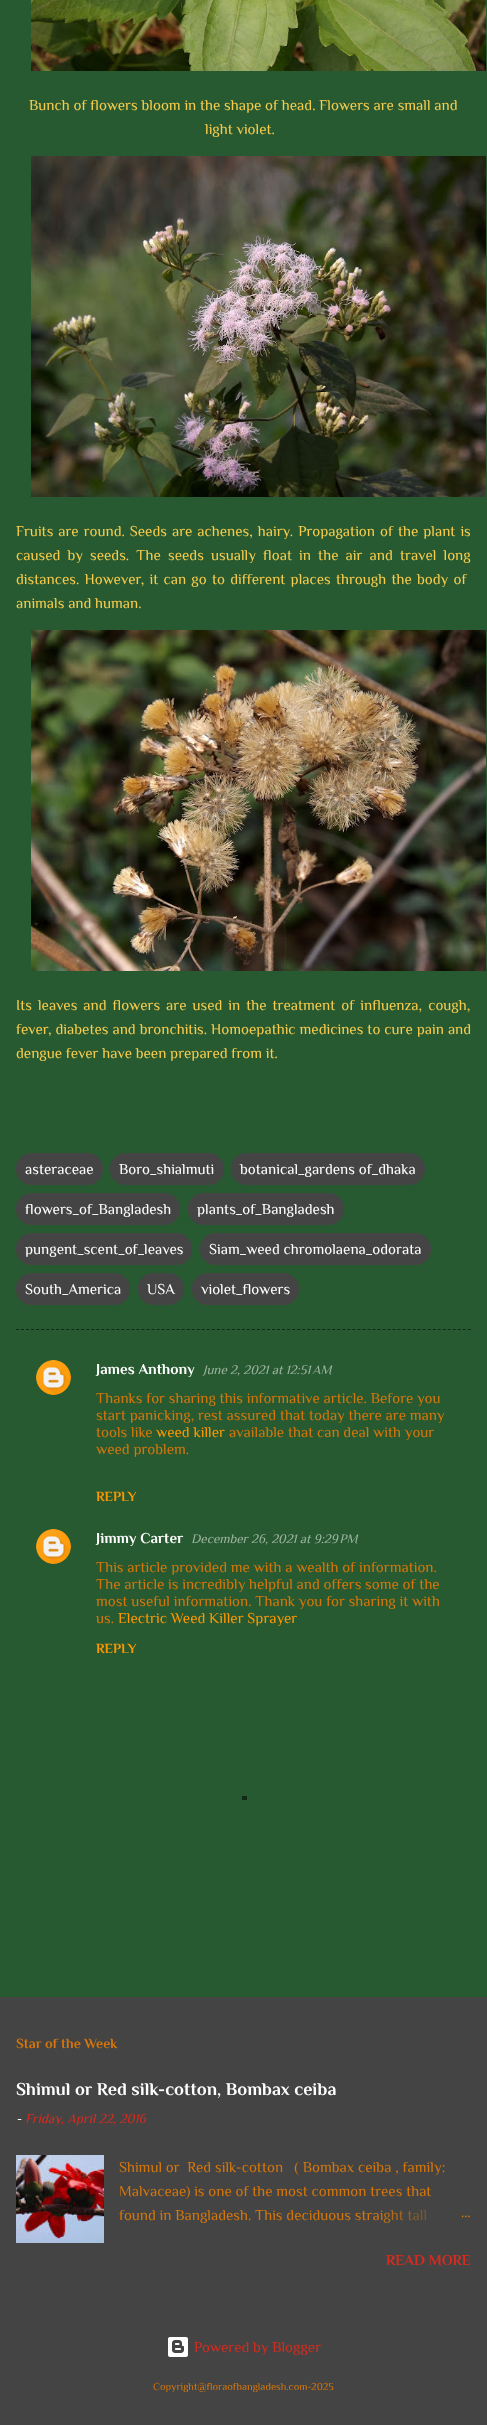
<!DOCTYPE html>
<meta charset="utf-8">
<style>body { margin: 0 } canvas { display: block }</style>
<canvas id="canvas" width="487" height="2425"></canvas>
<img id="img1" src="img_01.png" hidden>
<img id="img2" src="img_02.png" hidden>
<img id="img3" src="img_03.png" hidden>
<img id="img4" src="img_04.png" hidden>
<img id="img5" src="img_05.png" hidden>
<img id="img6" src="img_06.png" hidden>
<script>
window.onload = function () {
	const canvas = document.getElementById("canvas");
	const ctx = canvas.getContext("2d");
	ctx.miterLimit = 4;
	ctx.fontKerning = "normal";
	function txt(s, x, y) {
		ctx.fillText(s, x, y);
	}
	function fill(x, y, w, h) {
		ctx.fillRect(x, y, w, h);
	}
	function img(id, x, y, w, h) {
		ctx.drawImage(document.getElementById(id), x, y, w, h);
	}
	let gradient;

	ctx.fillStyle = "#444444";
	fill(0, 0, 487, 2425);
	ctx.fillStyle = "#285A31";
	fill(0, 0, 487, 1997);
	img("img1", 31, 0, 455, 71);
	img("img2", 31, 156, 455, 341);
	img("img3", 31, 630, 455, 341);
	ctx.fillStyle = "#444444";
	ctx.beginPath();
	ctx.roundRect(16.5, 1153.5, 86, 31, 14.5);
	ctx.fill();
	ctx.strokeStyle = "#444444";
	ctx.stroke();
	ctx.beginPath();
	ctx.roundRect(110.5, 1153.5, 113, 31, 14.5);
	ctx.fill();
	ctx.stroke();
	ctx.beginPath();
	ctx.roundRect(231.5, 1153.5, 193, 31, 14.5);
	ctx.fill();
	ctx.stroke();
	ctx.beginPath();
	ctx.roundRect(16.5, 1193.5, 163, 31, 14.5);
	ctx.fill();
	ctx.stroke();
	ctx.beginPath();
	ctx.roundRect(188.5, 1193.5, 155, 31, 14.5);
	ctx.fill();
	ctx.stroke();
	ctx.beginPath();
	ctx.roundRect(16.5, 1233.5, 175, 31, 14.5);
	ctx.fill();
	ctx.stroke();
	ctx.beginPath();
	ctx.roundRect(200.5, 1233.5, 230, 31, 14.5);
	ctx.fill();
	ctx.stroke();
	ctx.beginPath();
	ctx.roundRect(16.5, 1273.5, 113, 31, 14.5);
	ctx.fill();
	ctx.stroke();
	ctx.beginPath();
	ctx.roundRect(138.5, 1273.5, 45, 31, 14.5);
	ctx.fill();
	ctx.stroke();
	ctx.beginPath();
	ctx.roundRect(192.5, 1273.5, 106, 31, 14.5);
	ctx.fill();
	ctx.stroke();
	ctx.beginPath();
	ctx.moveTo(16, 1329.5);
	ctx.lineTo(471, 1329.5);
	ctx.strokeStyle = "#122917";
	ctx.setLineDash([3, 2.02]);
	ctx.stroke();
	img("img4", 36, 1360, 35, 35);
	img("img4", 36, 1529, 35, 35);
	img("img5", 16, 2155, 88, 88);
	img("img6", 168, 2337, 20, 20);
	ctx.fillStyle = "#122917";
	fill(242, 1796, 5, 4);
	ctx.font = "15px Philosopher";
	ctx.fillStyle = "#F7CB4D";
	txt("Bunch of flowers bloom in the shape of head. Flowers are small and", 29, 110);
	txt("light violet.", 205, 134);
	ctx.wordSpacing = "1.25px";
	txt("Fruits are round. Seeds are achenes, hairy. Propagation of the plant is", 16, 536);
	ctx.wordSpacing = "3.4px";
	txt("caused by seeds. The seeds usually float in the air and travel long", 16, 560);
	ctx.wordSpacing = "1.5px";
	txt("distances. However, it can go to different places through the body of", 16, 584);
	ctx.wordSpacing = "0px";
	txt("animals and human.", 16, 608);
	ctx.wordSpacing = "2.25px";
	txt("Its leaves and flowers are used in the treatment of influenza, cough,", 16, 1010);
	ctx.wordSpacing = "0.25px";
	txt("fever, diabetes and bronchitis. Homoepathic medicines to cure pain and", 16, 1034);
	ctx.wordSpacing = "0px";
	txt("dengue fever have been prepared from it.", 16, 1058);
	ctx.fillStyle = "#FFFFFF";
	txt("asteraceae", 25, 1174);
	txt("Boro_shialmuti", 119, 1174);
	txt("botanical_gardens of_dhaka", 240, 1174);
	txt("flowers_of_Bangladesh", 25, 1214);
	txt("plants_of_Bangladesh", 197, 1214);
	txt("pungent_scent_of_leaves", 25, 1254);
	txt("Siam_weed chromolaena_odorata", 209, 1254);
	txt("South_America", 25, 1294);
	txt("USA", 147, 1294);
	txt("violet_flowers", 201, 1294);
	ctx.font = "bold 15px Philosopher";
	txt("James Anthony", 96, 1374);
	ctx.font = "italic 13px Philosopher";
	ctx.fillStyle = "#9CB3A0";
	txt("June 2, 2021 at 12:51 AM", 203, 1374);
	ctx.font = "15px Philosopher";
	ctx.fillStyle = "#D4760B";
	txt("Thanks for sharing this informative article. Before you", 96, 1403);
	txt("start panicking, rest assured that today there are many", 96, 1420);
	txt("tools like", 96, 1437);
	ctx.fillStyle = "#FF9800";
	txt("weed killer", 156, 1437);
	ctx.fillStyle = "#D4760B";
	txt("available that can deal with your", 229, 1437);
	txt("weed problem.", 96, 1454);
	ctx.font = "bold 14px Philosopher";
	ctx.fillStyle = "#FF9800";
	txt("REPLY", 96, 1501);
	ctx.font = "bold 15px Philosopher";
	ctx.fillStyle = "#FFFFFF";
	txt("Jimmy Carter", 96, 1543);
	ctx.font = "italic 13px Philosopher";
	ctx.fillStyle = "#9CB3A0";
	txt("December 26, 2021 at 9:29 PM", 191, 1543);
	ctx.font = "15px Philosopher";
	ctx.fillStyle = "#D4760B";
	txt("This article provided me with a wealth of information.", 96, 1572);
	txt("The article is incredibly helpful and offers some of the", 96, 1589);
	txt("most useful information. Thank you for sharing it with", 96, 1606);
	txt("us.", 96, 1623);
	ctx.fillStyle = "#FF9800";
	txt("Electric Weed Killer Sprayer", 118, 1623);
	ctx.font = "bold 14px Philosopher";
	txt("REPLY", 96, 1653);
	ctx.fillStyle = "#D4760B";
	txt("Star of the Week", 16, 2048);
	ctx.font = "bold 18px Philosopher";
	ctx.fillStyle = "#FFFFFF";
	txt("Shimul or Red silk-cotton, Bombax ceiba", 16, 2095);
	ctx.font = "italic 13.5px Philosopher";
	txt("-", 16, 2123);
	ctx.fillStyle = "#D52C1F";
	txt("Friday, April 22, 2016", 25, 2123);
	ctx.font = "15px Philosopher";
	ctx.fillStyle = "#D4760B";
	txt("Shimul or  Red silk-cotton   ( Bombax ceiba , family:", 119, 2172);
	txt("Malvaceae) is one of the most common trees that", 119, 2196);
	txt("found in Bangladesh. This deciduous straight tall", 119, 2220);
	gradient = ctx.createLinearGradient(471, 2215, 375, 2215);
	gradient.addColorStop(0, "#444444");
	gradient.addColorStop(0.2, "#444444");
	gradient.addColorStop(1, "rgba(68, 68, 68, 0)");
	ctx.fillStyle = gradient;
	fill(377, 2210, 49, 13);
	ctx.fillStyle = "#D4760B";
	txt("…", 461, 2217);
	ctx.font = "bold 15px Philosopher";
	ctx.fillStyle = "#D52C1F";
	txt("READ MORE", 386, 2265);
	ctx.font = "15px Philosopher";
	txt("Powered by Blogger", 194, 2352);
	ctx.font = "10.5px Philosopher";
	ctx.fillStyle = "#D4760B";
	txt("Copyright@floraofbangladesh.com-2025", 153, 2390);
};
</script>
